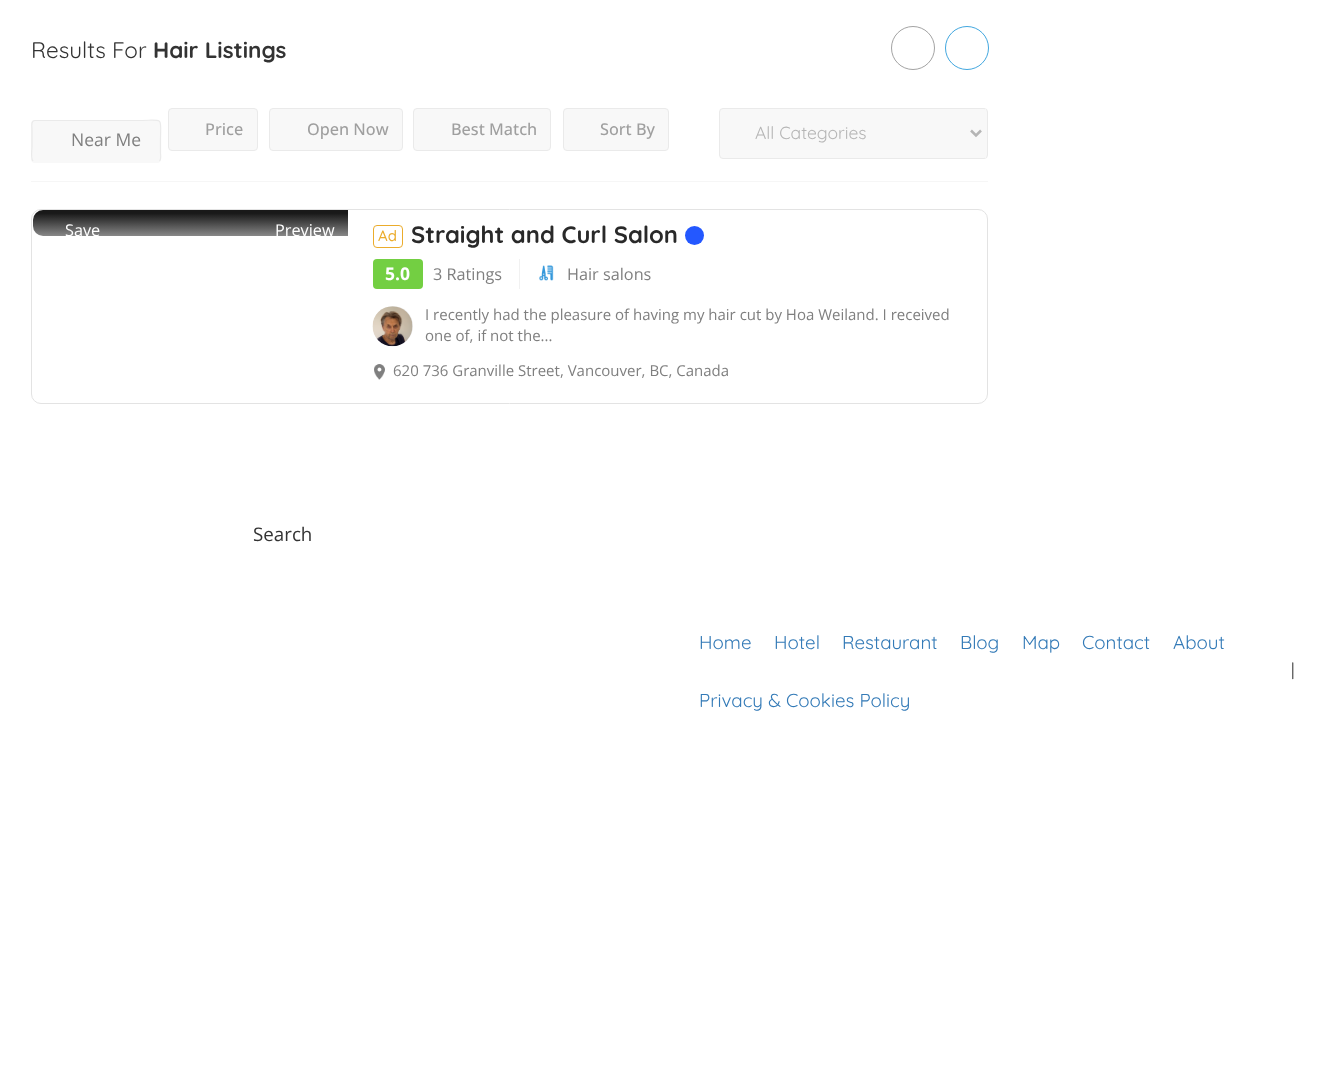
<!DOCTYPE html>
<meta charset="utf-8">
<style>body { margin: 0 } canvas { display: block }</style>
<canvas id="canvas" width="1324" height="1085"></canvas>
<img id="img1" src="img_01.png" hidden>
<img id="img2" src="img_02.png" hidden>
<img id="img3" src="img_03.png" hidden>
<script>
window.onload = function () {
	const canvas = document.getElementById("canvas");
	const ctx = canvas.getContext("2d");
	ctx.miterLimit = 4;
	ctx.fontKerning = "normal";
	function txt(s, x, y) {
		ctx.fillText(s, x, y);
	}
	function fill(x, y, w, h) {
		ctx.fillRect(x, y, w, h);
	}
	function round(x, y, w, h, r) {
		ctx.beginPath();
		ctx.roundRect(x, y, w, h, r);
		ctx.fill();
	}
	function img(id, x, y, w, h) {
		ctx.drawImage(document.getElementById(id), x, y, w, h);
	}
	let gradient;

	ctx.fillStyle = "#FFFFFF";
	fill(0, 0, 1324, 1085);
	ctx.beginPath();
	ctx.arc(913, 48, 21.5, 0, Math.PI * 2);
	ctx.strokeStyle = "#A3A3A3";
	ctx.stroke();
	ctx.beginPath();
	ctx.arc(967, 48, 21.5, 0, Math.PI * 2);
	ctx.strokeStyle = "#42A7DF";
	ctx.stroke();
	ctx.fillStyle = "#F6F6F6";
	fill(31, 181, 957, 1);
	ctx.fillStyle = "#F8F8F8";
	round(31, 120, 130, 43, 4);
	ctx.beginPath();
	ctx.moveTo(33, 161);
	ctx.bezierCurveTo(30.5, 158.5, 32, 149.5, 32, 147);
	ctx.lineTo(32, 129.5);
	ctx.bezierCurveTo(32, 127.5, 30.5, 120.5, 35, 120.5);
	ctx.lineTo(137, 120.5);
	ctx.bezierCurveTo(165, 120.5, 160.5, 115.5, 160.5, 141);
	ctx.lineTo(160.5, 153);
	ctx.bezierCurveTo(160.5, 154.5, 161.5, 159, 159.5, 161);
	ctx.strokeStyle = "#EAEAEA";
	ctx.lineWidth = 1.2;
	ctx.stroke();
	ctx.beginPath();
	ctx.roundRect(168.5, 108.5, 89, 42, 3.5);
	ctx.fill();
	ctx.lineWidth = 1;
	ctx.stroke();
	ctx.beginPath();
	ctx.roundRect(269.5, 108.5, 133, 42, 3.5);
	ctx.fill();
	ctx.stroke();
	ctx.beginPath();
	ctx.roundRect(413.5, 108.5, 137, 42, 3.5);
	ctx.fill();
	ctx.stroke();
	ctx.beginPath();
	ctx.roundRect(563.5, 108.5, 105, 42, 3.5);
	ctx.fill();
	ctx.stroke();
	ctx.beginPath();
	ctx.roundRect(719.5, 108.5, 268, 50, 3.5);
	ctx.fill();
	ctx.stroke();
	fill(985, 109, 1, 49);
	ctx.beginPath();
	ctx.moveTo(971, 130.5);
	ctx.lineTo(976, 135.5);
	ctx.lineTo(981, 130.5);
	ctx.strokeStyle = "#B5B5B5";
	ctx.lineWidth = 2.5;
	ctx.stroke();
	ctx.beginPath();
	ctx.roundRect(31.5, 209.5, 956, 194, 9.5);
	ctx.strokeStyle = "#E3E3E3";
	ctx.lineWidth = 1;
	ctx.stroke();
	gradient = ctx.createLinearGradient(190, 265, 190, 210);
	gradient.addColorStop(0.08, "#FFFFFF");
	gradient.addColorStop(0.94, "#191919");
	ctx.fillStyle = gradient;
	ctx.beginPath();
	ctx.roundRect(33, 210, 315, 26, [10, 0, 0, 10]);
	ctx.fill();
	ctx.beginPath();
	ctx.roundRect(373.5, 225.5, 29, 22, 3.5);
	ctx.strokeStyle = "#EBAC2C";
	ctx.stroke();
	ctx.fillStyle = "#2458FF";
	ctx.beginPath();
	ctx.arc(694.5, 235.5, 9.5, 0, Math.PI * 2);
	ctx.fill();
	ctx.fillStyle = "#F1F1F1";
	fill(519, 259, 1, 30);
	ctx.fillStyle = "#73CF42";
	round(373, 259, 50, 30, 4);
	img("img1", 539, 265, 15, 16);
	ctx.fillStyle = "#EBEBEB";
	ctx.beginPath();
	ctx.arc(393, 326, 20, 0, Math.PI * 2);
	ctx.fill();
	img("img2", 372, 306, 41, 41);
	img("img3", 374, 364, 11, 16);
	ctx.font = "22.5px Quicksand";
	ctx.fillStyle = "#333333";
	txt("Results For", 31, 58);
	ctx.font = "bold 22.5px Quicksand";
	txt("Hair Listings", 153, 58);
	ctx.font = "17.5px Open Sans";
	ctx.fillStyle = "#7F7F7F";
	txt("Near Me", 71, 146);
	ctx.font = "500 16.25px Open Sans";
	ctx.fillStyle = "#9F9F9F";
	txt("Price", 205, 135);
	txt("Open Now", 307, 135);
	txt("Best Match", 451, 135);
	txt("Sort By", 600, 135);
	ctx.font = "17.5px Quicksand";
	ctx.fillStyle = "#B5B5B5";
	txt("All Categories", 755, 139);
	ctx.save();
	ctx.beginPath();
	ctx.roundRect(33, 210, 315, 26, [10, 0, 0, 10]);
	ctx.clip();
	ctx.font = "16.25px Open Sans";
	ctx.fillStyle = "#FFFFFF";
	txt("Save", 65, 236);
	txt("Preview", 275, 236);
	ctx.restore();
	ctx.font = "500 15px Quicksand";
	ctx.fillStyle = "#EBAC2C";
	txt("Ad", 378, 241);
	ctx.font = "bold 23.75px Quicksand";
	ctx.fillStyle = "#292929";
	txt("Straight and Curl Salon", 411, 243);
	ctx.font = "bold 17.5px Open Sans";
	ctx.fillStyle = "#FFFFFF";
	txt("5.0", 385, 280);
	ctx.font = "16.25px Open Sans";
	ctx.fillStyle = "#7F7F7F";
	txt("3 Ratings", 433, 280);
	txt("Hair salons", 567, 280);
	ctx.font = "15px Open Sans";
	txt("I recently had the pleasure of having my hair cut by Hoa Weiland. I received", 425, 320);
	txt("one of, if not the...", 425, 341);
	txt("620 736 Granville Street, Vancouver, BC, Canada", 393, 376);
	ctx.font = "18.75px Open Sans";
	ctx.fillStyle = "#333333";
	txt("Search", 253, 541);
	ctx.font = "18.75px Quicksand";
	ctx.fillStyle = "#337AB7";
	txt("Home", 699, 649);
	txt("Hotel", 774, 649);
	txt("Restaurant", 842, 649);
	txt("Blog", 960, 649);
	txt("Map", 1022, 649);
	txt("Contact", 1082, 649);
	txt("About", 1173, 649);
	txt("Privacy & Cookies Policy", 699, 707);
	ctx.font = "17.5px Quicksand";
	ctx.fillStyle = "#333333";
	txt("|", 1291, 676);
};
</script>
